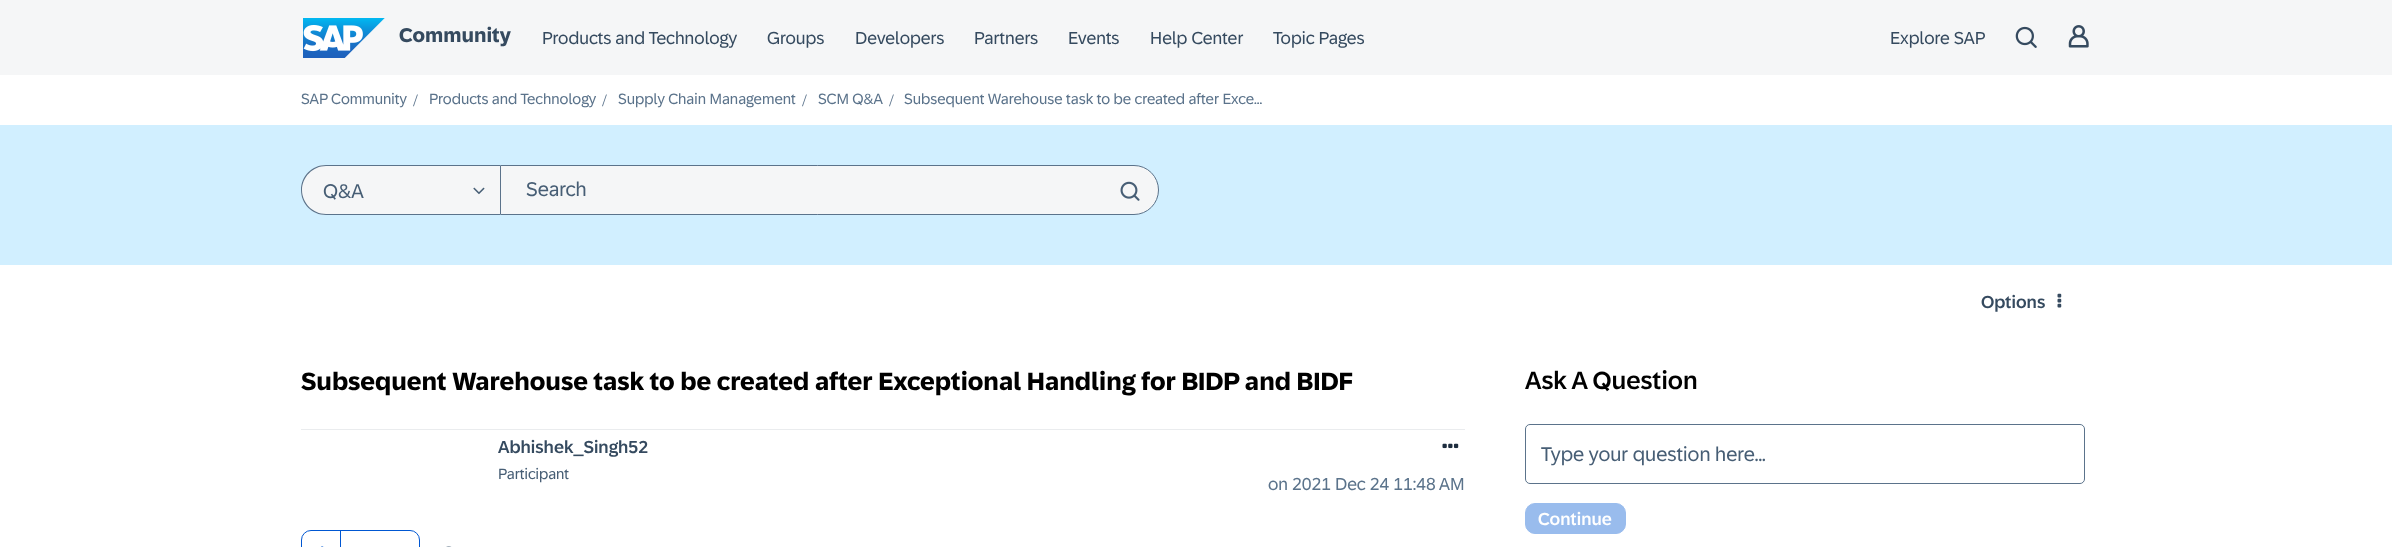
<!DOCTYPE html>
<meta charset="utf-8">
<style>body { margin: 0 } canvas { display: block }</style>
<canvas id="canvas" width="2392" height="547"></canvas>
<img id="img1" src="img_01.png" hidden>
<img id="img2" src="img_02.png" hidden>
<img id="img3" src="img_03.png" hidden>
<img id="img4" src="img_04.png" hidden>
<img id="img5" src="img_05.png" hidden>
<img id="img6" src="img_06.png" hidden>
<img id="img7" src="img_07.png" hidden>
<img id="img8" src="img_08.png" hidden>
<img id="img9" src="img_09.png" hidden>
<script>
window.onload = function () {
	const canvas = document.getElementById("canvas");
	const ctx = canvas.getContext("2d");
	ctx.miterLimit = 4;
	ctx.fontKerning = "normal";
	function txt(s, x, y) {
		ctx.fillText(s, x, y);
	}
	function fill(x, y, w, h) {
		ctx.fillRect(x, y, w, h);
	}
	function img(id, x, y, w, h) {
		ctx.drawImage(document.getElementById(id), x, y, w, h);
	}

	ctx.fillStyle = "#FFFFFF";
	fill(0, 0, 2392, 547);
	ctx.fillStyle = "#F5F6F7";
	fill(0, 0, 2392, 75);
	img("img1", 303, 18, 82, 40);
	img("img2", 2015, 26, 22, 22);
	img("img3", 2068, 25, 21, 23);
	ctx.fillStyle = "#D1EFFF";
	fill(0, 125, 2392, 140);
	ctx.fillStyle = "#F5F6F7";
	ctx.beginPath();
	ctx.roundRect(301, 165, 199, 50, [25, 0, 0, 25]);
	ctx.fill();
	ctx.fillStyle = "#5B738B";
	ctx.beginPath();
	ctx.moveTo(326, 165);
	ctx.lineTo(500, 165);
	ctx.lineTo(500, 215);
	ctx.lineTo(326, 215);
	ctx.bezierCurveTo(312, 215, 301, 204, 301, 190);
	ctx.bezierCurveTo(301, 176, 312, 165, 326, 165);
	ctx.closePath();
	ctx.moveTo(326, 166);
	ctx.lineTo(500, 166);
	ctx.lineTo(500, 214);
	ctx.lineTo(326, 214);
	ctx.bezierCurveTo(313, 214, 302, 203, 302, 190);
	ctx.bezierCurveTo(302, 177, 313, 166, 326, 166);
	ctx.closePath();
	ctx.fill("evenodd");
	img("img4", 473, 187, 12, 8);
	ctx.fillStyle = "#F5F6F7";
	ctx.beginPath();
	ctx.roundRect(500.5, 165.5, 658, 49, [0, 24.5, 24.5, 0]);
	ctx.fill();
	ctx.strokeStyle = "#5B738B";
	ctx.stroke();
	img("img5", 1120, 181, 20, 20);
	img("img6", 2057, 293, 5, 15);
	ctx.fillStyle = "#EAECEE";
	fill(301, 429, 1164, 1);
	img("img7", 1442, 443, 17, 6);
	ctx.beginPath();
	ctx.roundRect(301.5, 530.5, 118, 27, 9.5);
	ctx.strokeStyle = "#0057D2";
	ctx.stroke();
	ctx.fillStyle = "#0057D2";
	fill(340, 531, 1, 16);
	img("img8", 321, 546, 3, 1);
	img("img9", 446, 546, 6, 1);
	ctx.beginPath();
	ctx.roundRect(1525.5, 424.5, 559, 59, 4.5);
	ctx.strokeStyle = "#5B738B";
	ctx.stroke();
	ctx.fillStyle = "#99BCED";
	ctx.beginPath();
	ctx.roundRect(1525.5, 503.5, 100, 30, 9.5);
	ctx.fill();
	ctx.strokeStyle = "#99BCED";
	ctx.stroke();
	ctx.font = "bold 20px '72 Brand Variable'";
	ctx.fillStyle = "#354A5F";
	txt("Community", 399, 42);
	ctx.font = "17.5px '72 Brand Variable'";
	txt("Products and Technology", 542, 44);
	txt("Groups", 767, 44);
	txt("Developers", 855, 44);
	txt("Partners", 974, 44);
	txt("Events", 1068, 44);
	txt("Help Center", 1150, 44);
	txt("Topic Pages", 1273, 44);
	txt("Explore SAP", 1890, 44);
	ctx.font = "15px '72 Brand Variable'";
	ctx.fillStyle = "#5B738B";
	txt("SAP Community", 301, 104);
	ctx.font = "17.5px Liberation Serif";
	txt("/", 413, 106);
	ctx.font = "15px '72 Brand Variable'";
	txt("Products and Technology", 429, 104);
	ctx.font = "17.5px Liberation Serif";
	txt("/", 602, 106);
	ctx.font = "15px '72 Brand Variable'";
	txt("Supply Chain Management", 618, 104);
	ctx.font = "17.5px Liberation Serif";
	txt("/", 802, 106);
	ctx.font = "15px '72 Brand Variable'";
	txt("SCM Q&A", 818, 104);
	ctx.font = "17.5px Liberation Serif";
	txt("/", 889, 106);
	ctx.font = "15px '72 Brand Variable'";
	txt("Subsequent Warehouse task to be created after Exce...", 904, 104);
	ctx.font = "20px '72 Brand Variable'";
	ctx.fillStyle = "#475E75";
	txt("Q&A", 323, 198);
	txt("Search", 526, 196);
	ctx.font = "500 17.5px '72 Brand Variable'";
	ctx.fillStyle = "#354A5F";
	txt("Options", 1981, 308);
	ctx.font = "bold 25px '72 Brand Variable'";
	ctx.fillStyle = "#000000";
	txt("Subsequent Warehouse task to be created after Exceptional Handling for BIDP and BIDF", 301, 390);
	ctx.font = "500 17.5px '72 Brand Variable'";
	ctx.fillStyle = "#354A5F";
	txt("Abhishek_Singh52", 498, 453);
	ctx.font = "15px '72 Brand Variable'";
	ctx.fillStyle = "#475E75";
	txt("Participant", 498, 479);
	ctx.font = "17.5px '72 Brand Variable'";
	ctx.fillStyle = "#5B738B";
	txt("on 2021 Dec 24 11:48 AM", 1268, 490);
	ctx.font = "500 25px '72 Brand Variable'";
	ctx.fillStyle = "#000000";
	txt("Ask A Question", 1525, 389);
	ctx.font = "20px '72 Brand Variable'";
	ctx.fillStyle = "#475E75";
	txt("Type your question here...", 1541, 461);
	ctx.font = "500 17.5px '72 Brand Variable'";
	ctx.fillStyle = "#FFFFFF";
	txt("Continue", 1538, 525);
};
</script>
